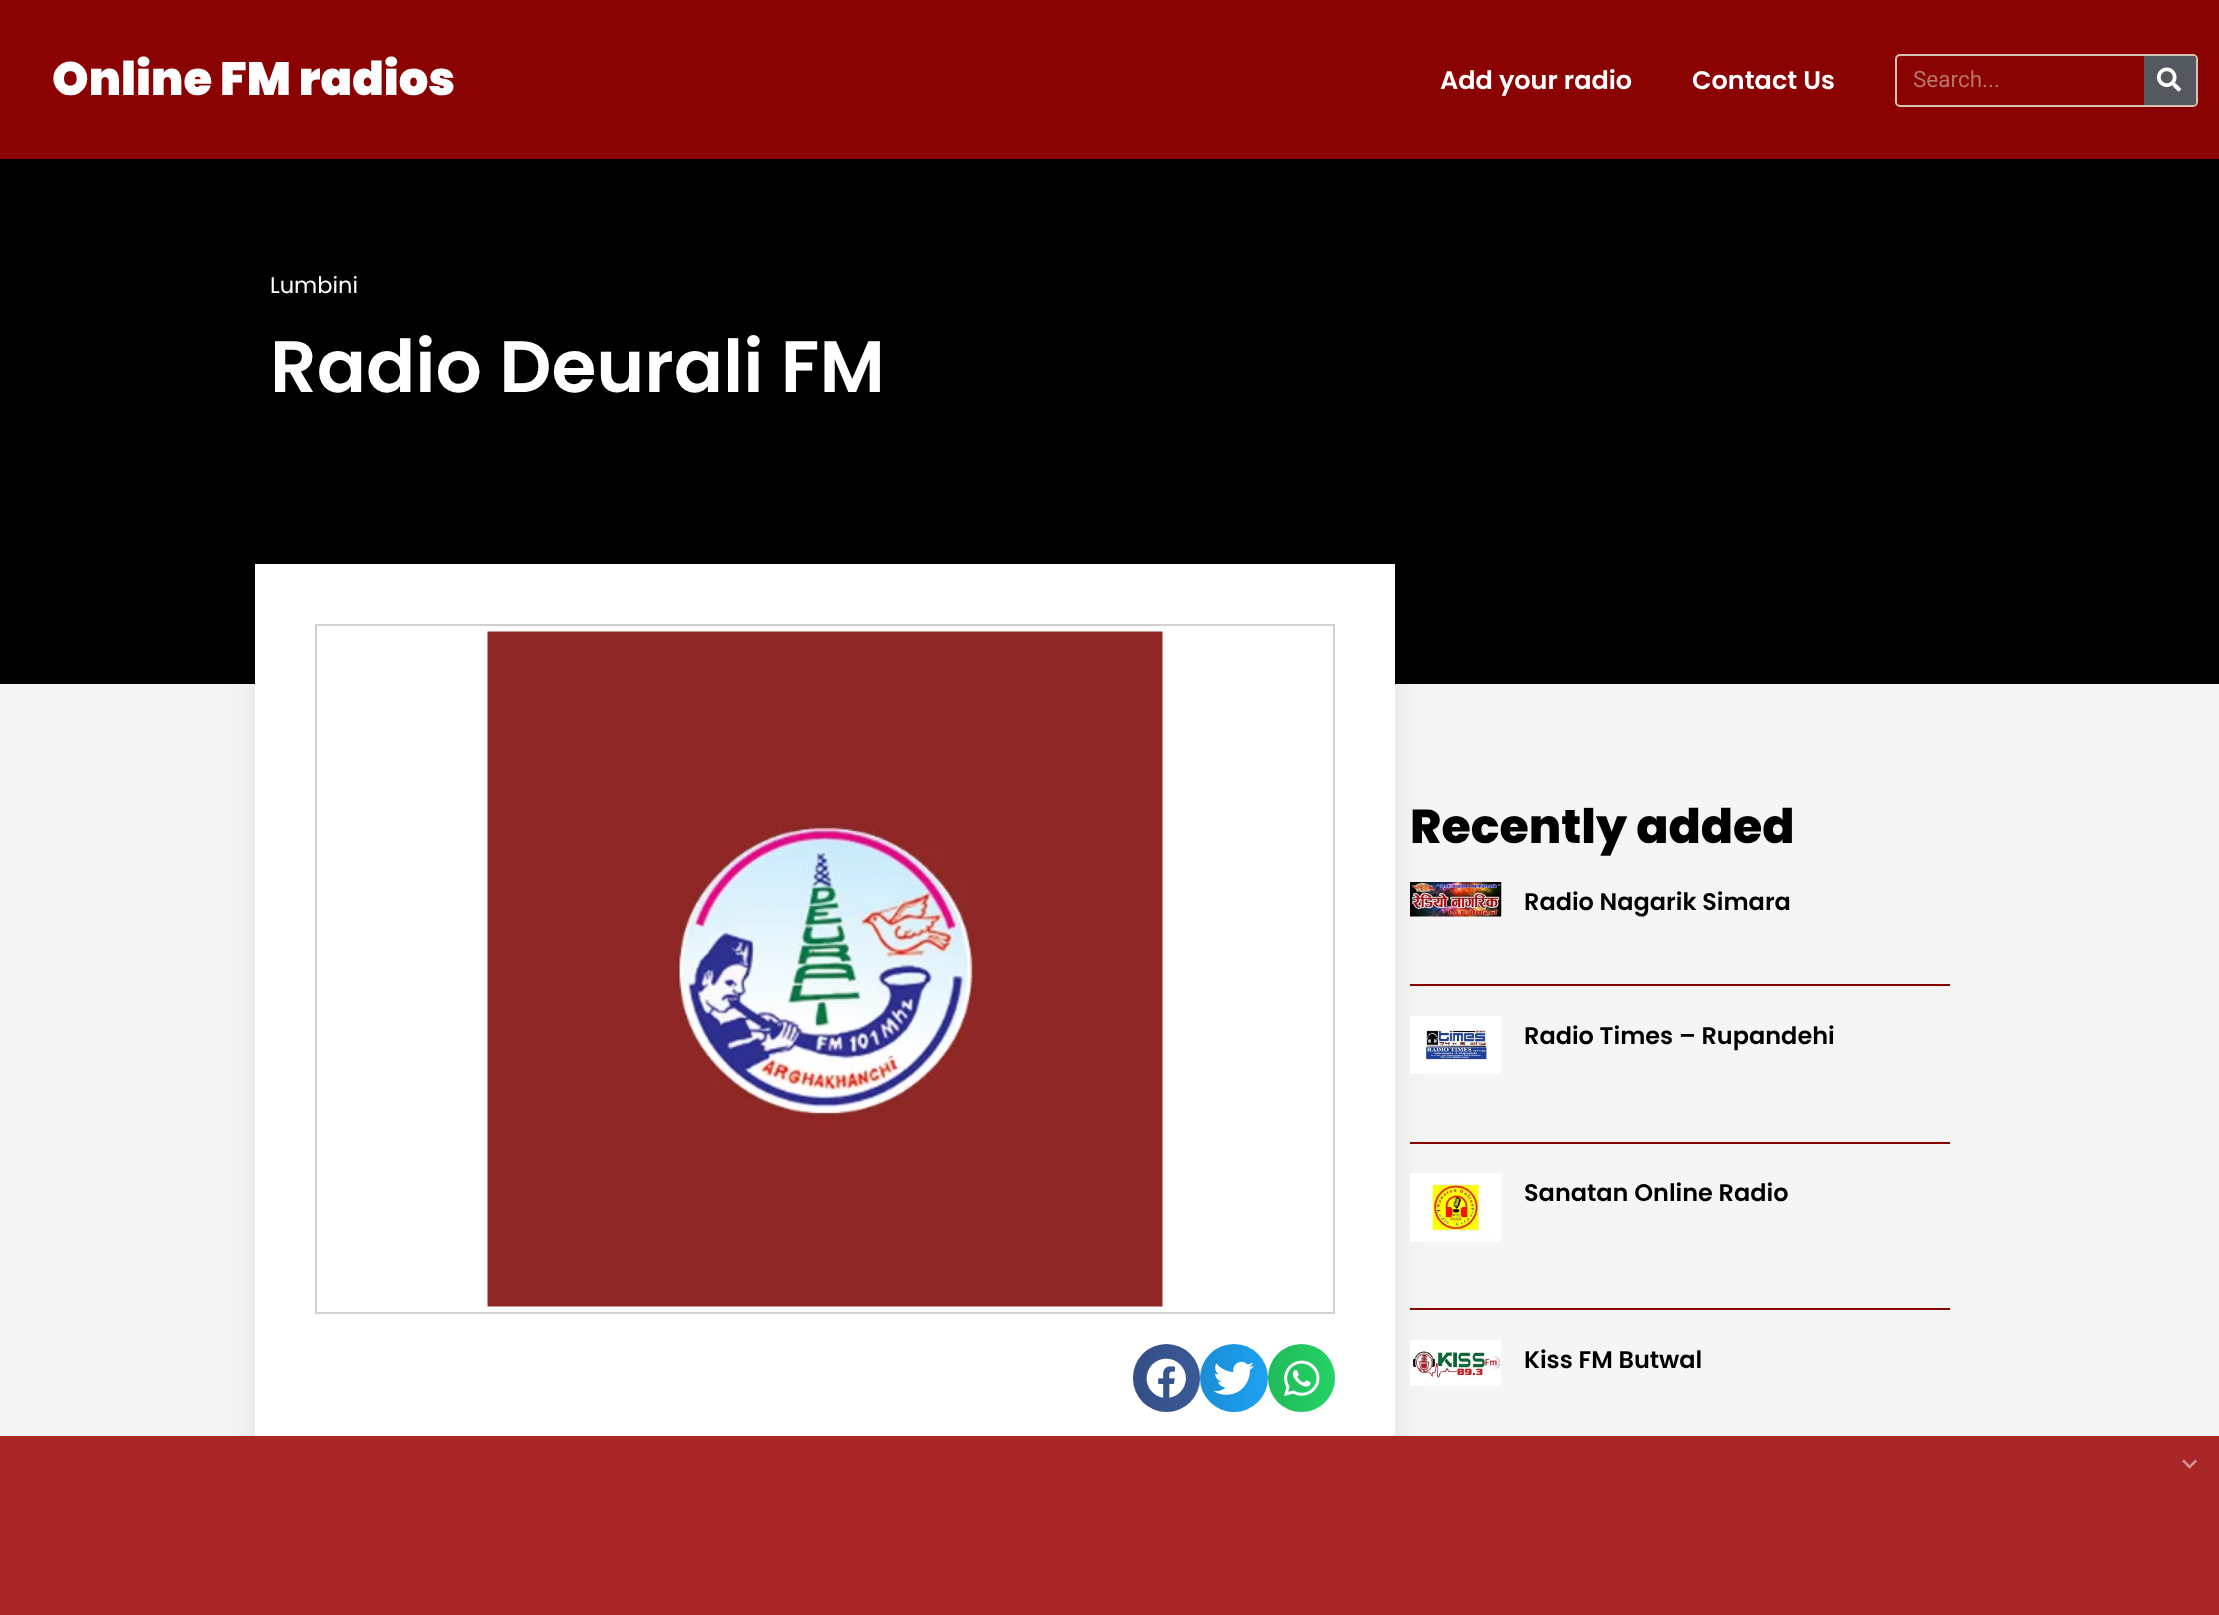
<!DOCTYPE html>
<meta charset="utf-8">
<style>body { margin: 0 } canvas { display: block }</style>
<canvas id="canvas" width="2219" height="1615"></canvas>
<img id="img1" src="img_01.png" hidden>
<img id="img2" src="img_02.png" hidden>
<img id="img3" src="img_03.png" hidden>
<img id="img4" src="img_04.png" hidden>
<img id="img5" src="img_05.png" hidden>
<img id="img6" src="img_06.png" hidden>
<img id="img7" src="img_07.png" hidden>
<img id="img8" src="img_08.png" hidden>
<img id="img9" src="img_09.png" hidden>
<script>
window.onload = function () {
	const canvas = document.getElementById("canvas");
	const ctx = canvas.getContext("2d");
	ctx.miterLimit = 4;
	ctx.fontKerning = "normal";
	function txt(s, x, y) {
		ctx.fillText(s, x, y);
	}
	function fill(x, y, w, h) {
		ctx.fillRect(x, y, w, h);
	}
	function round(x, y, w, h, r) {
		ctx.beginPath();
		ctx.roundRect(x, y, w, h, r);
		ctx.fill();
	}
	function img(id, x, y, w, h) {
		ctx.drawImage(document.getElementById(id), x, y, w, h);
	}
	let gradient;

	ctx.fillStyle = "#F5F5F5";
	fill(0, 0, 2219, 1615);
	ctx.fillStyle = "#8B0202";
	fill(0, 0, 2219, 159);
	ctx.beginPath();
	ctx.roundRect(1896, 55, 301, 51, 4);
	ctx.strokeStyle = "#D5C2B0";
	ctx.lineWidth = 2;
	ctx.stroke();
	ctx.fillStyle = "#54595F";
	ctx.beginPath();
	ctx.roundRect(2144, 56, 52, 49, [0, 3, 3, 0]);
	ctx.fill();
	img("img1", 2157, 67, 24, 25);
	ctx.fillStyle = "#000000";
	fill(0, 159, 2219, 525);
	ctx.fillStyle = "rgba(0, 0, 0, 0.09)";
	ctx.filter = "blur(15px)";
	ctx.beginPath();
	ctx.rect(255, 564, 1140, 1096);
	ctx.fill();
	ctx.filter = "none";
	ctx.fillStyle = "#FFFFFF";
	fill(255, 564, 1140, 872);
	ctx.strokeStyle = "#D1D1D1";
	ctx.strokeRect(316, 625, 1018, 688);
	img("img2", 487, 631, 676, 676);
	ctx.fillStyle = "#3B5998";
	round(1133, 1344, 67, 68, 33.5);
	gradient = ctx.createLinearGradient(1133, 1378, 1200, 1378);
	gradient.addColorStop(0, "rgba(0, 0, 0, 0.12)");
	gradient.addColorStop(1, "rgba(0, 0, 0, 0)");
	ctx.fillStyle = gradient;
	round(1133, 1344, 67, 68, 33.5);
	img("img3", 1146, 1358, 40, 40);
	ctx.fillStyle = "#1DA1F2";
	ctx.beginPath();
	ctx.arc(1234, 1378, 34, 0, Math.PI * 2);
	ctx.fill();
	gradient = ctx.createLinearGradient(1200, 1378, 1268, 1378);
	gradient.addColorStop(0, "rgba(0, 0, 0, 0.12)");
	gradient.addColorStop(1, "rgba(0, 0, 0, 0)");
	ctx.fillStyle = gradient;
	ctx.beginPath();
	ctx.arc(1234, 1378, 34, 0, Math.PI * 2);
	ctx.fill();
	img("img4", 1213, 1361, 41, 34);
	ctx.fillStyle = "#25D366";
	round(1268, 1344, 67, 68, 33.5);
	gradient = ctx.createLinearGradient(1268, 1378, 1335, 1378);
	gradient.addColorStop(0, "rgba(0, 0, 0, 0.12)");
	gradient.addColorStop(1, "rgba(0, 0, 0, 0)");
	ctx.fillStyle = gradient;
	round(1268, 1344, 67, 68, 33.5);
	img("img5", 1284, 1360, 36, 36);
	ctx.fillStyle = "#8B0202";
	fill(1410, 984, 540, 2);
	img("img6", 1410, 882, 92, 35);
	fill(1410, 1142, 540, 2);
	img("img7", 1410, 1016, 91, 58);
	fill(1410, 1308, 540, 2);
	img("img8", 1410, 1173, 91, 69);
	img("img9", 1410, 1340, 91, 46);
	ctx.fillStyle = "#AA2727";
	fill(0, 1436, 2219, 179);
	ctx.font = "900 46.5px Poppins";
	ctx.fillStyle = "#FFFFFF";
	txt("Online FM radios", 52, 95);
	ctx.font = "600 25.5px Poppins";
	txt("Add your radio", 1440, 89);
	txt("Contact Us", 1692, 89);
	ctx.font = "22.5px Roboto";
	ctx.fillStyle = "#B7756A";
	txt("Search...", 1913, 87);
	ctx.font = "22.5px Poppins";
	ctx.fillStyle = "#FFFFFF";
	txt("Lumbini", 270, 293);
	ctx.font = "600 72.75px Poppins";
	txt("Radio Deurali FM", 270, 392);
	ctx.font = "800 47.5px Poppins";
	ctx.fillStyle = "#000000";
	txt("Recently added", 1410, 843);
	ctx.font = "600 24px Poppins";
	txt("Radio Nagarik Simara", 1524, 910);
	txt("Radio Times – Rupandehi", 1524, 1044);
	txt("Sanatan Online Radio", 1524, 1201);
	txt("Kiss FM Butwal", 1524, 1368);
	ctx.font = "30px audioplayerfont";
	ctx.fillStyle = "#D59393";
	txt("꤅", 2175, 1476);
};
</script>
